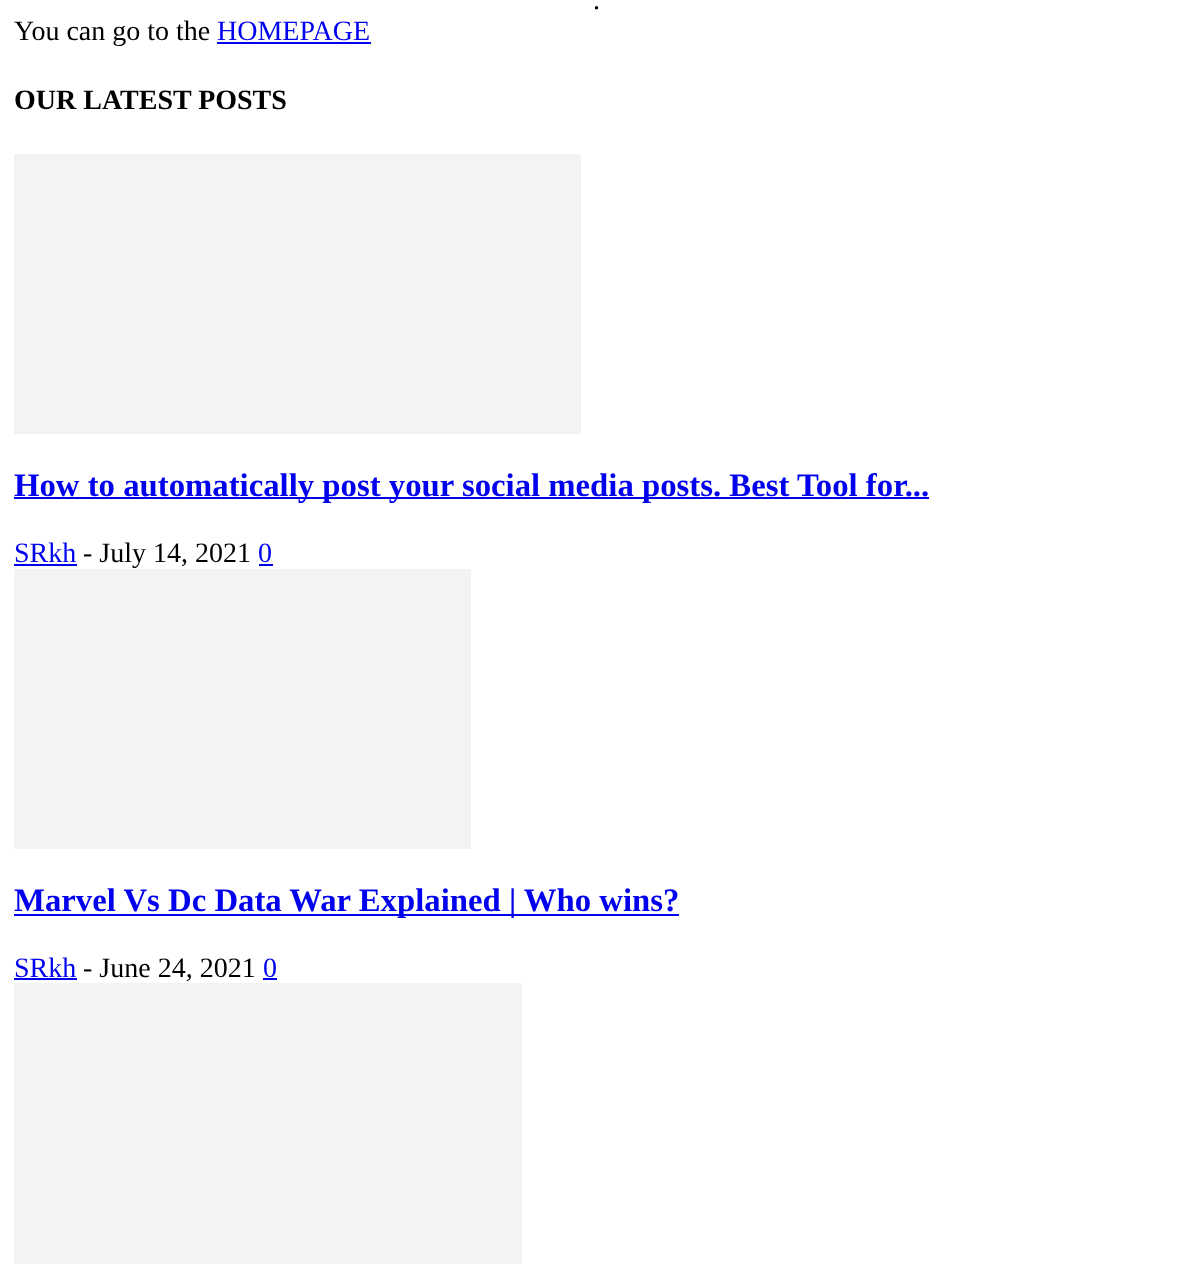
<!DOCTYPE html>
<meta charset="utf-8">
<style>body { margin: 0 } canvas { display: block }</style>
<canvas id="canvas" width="1189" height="1270"></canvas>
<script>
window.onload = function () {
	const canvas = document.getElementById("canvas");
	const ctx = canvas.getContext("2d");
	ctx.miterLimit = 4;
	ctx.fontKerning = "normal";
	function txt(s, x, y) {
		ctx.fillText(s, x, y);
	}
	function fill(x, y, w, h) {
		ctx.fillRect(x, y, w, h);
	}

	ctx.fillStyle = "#FFFFFF";
	fill(0, 0, 1189, 1270);
	ctx.fillStyle = "#0000EE";
	fill(217, 42, 154, 2);
	ctx.fillStyle = "#F3F3F3";
	fill(14, 154, 567, 280);
	ctx.fillStyle = "#0000EE";
	fill(14, 497, 915, 2);
	fill(14, 564, 63, 2);
	fill(259, 564, 14, 2);
	ctx.fillStyle = "#F3F3F3";
	fill(14, 569, 457, 280);
	ctx.fillStyle = "#0000EE";
	fill(14, 914, 665, 2);
	fill(14, 978, 63, 2);
	fill(263, 978, 14, 2);
	ctx.fillStyle = "#F3F3F3";
	fill(14, 983, 508, 281);
	ctx.font = "28px Liberation Serif";
	ctx.fillStyle = "#000000";
	txt(".", 593, 9);
	txt("You can go to the", 14, 40);
	ctx.fillStyle = "#0000EE";
	txt("HOMEPAGE", 217, 40);
	ctx.font = "bold 28px Liberation Serif";
	ctx.fillStyle = "#000000";
	txt("OUR LATEST POSTS", 14, 109);
	ctx.font = "bold 32.75px Liberation Serif";
	ctx.fillStyle = "#0000EE";
	txt("How to automatically post your social media posts. Best Tool for...", 14, 496);
	ctx.font = "28px Liberation Serif";
	txt("SRkh", 14, 562);
	ctx.fillStyle = "#000000";
	txt("- July 14, 2021", 83, 562);
	ctx.fillStyle = "#0000EE";
	txt("0", 258, 562);
	ctx.font = "bold 32.75px Liberation Serif";
	txt("Marvel Vs Dc Data War Explained | Who wins?", 14, 911);
	ctx.font = "28px Liberation Serif";
	txt("SRkh", 14, 977);
	ctx.fillStyle = "#000000";
	txt("- June 24, 2021", 83, 977);
	ctx.fillStyle = "#0000EE";
	txt("0", 263, 977);
};
</script>
